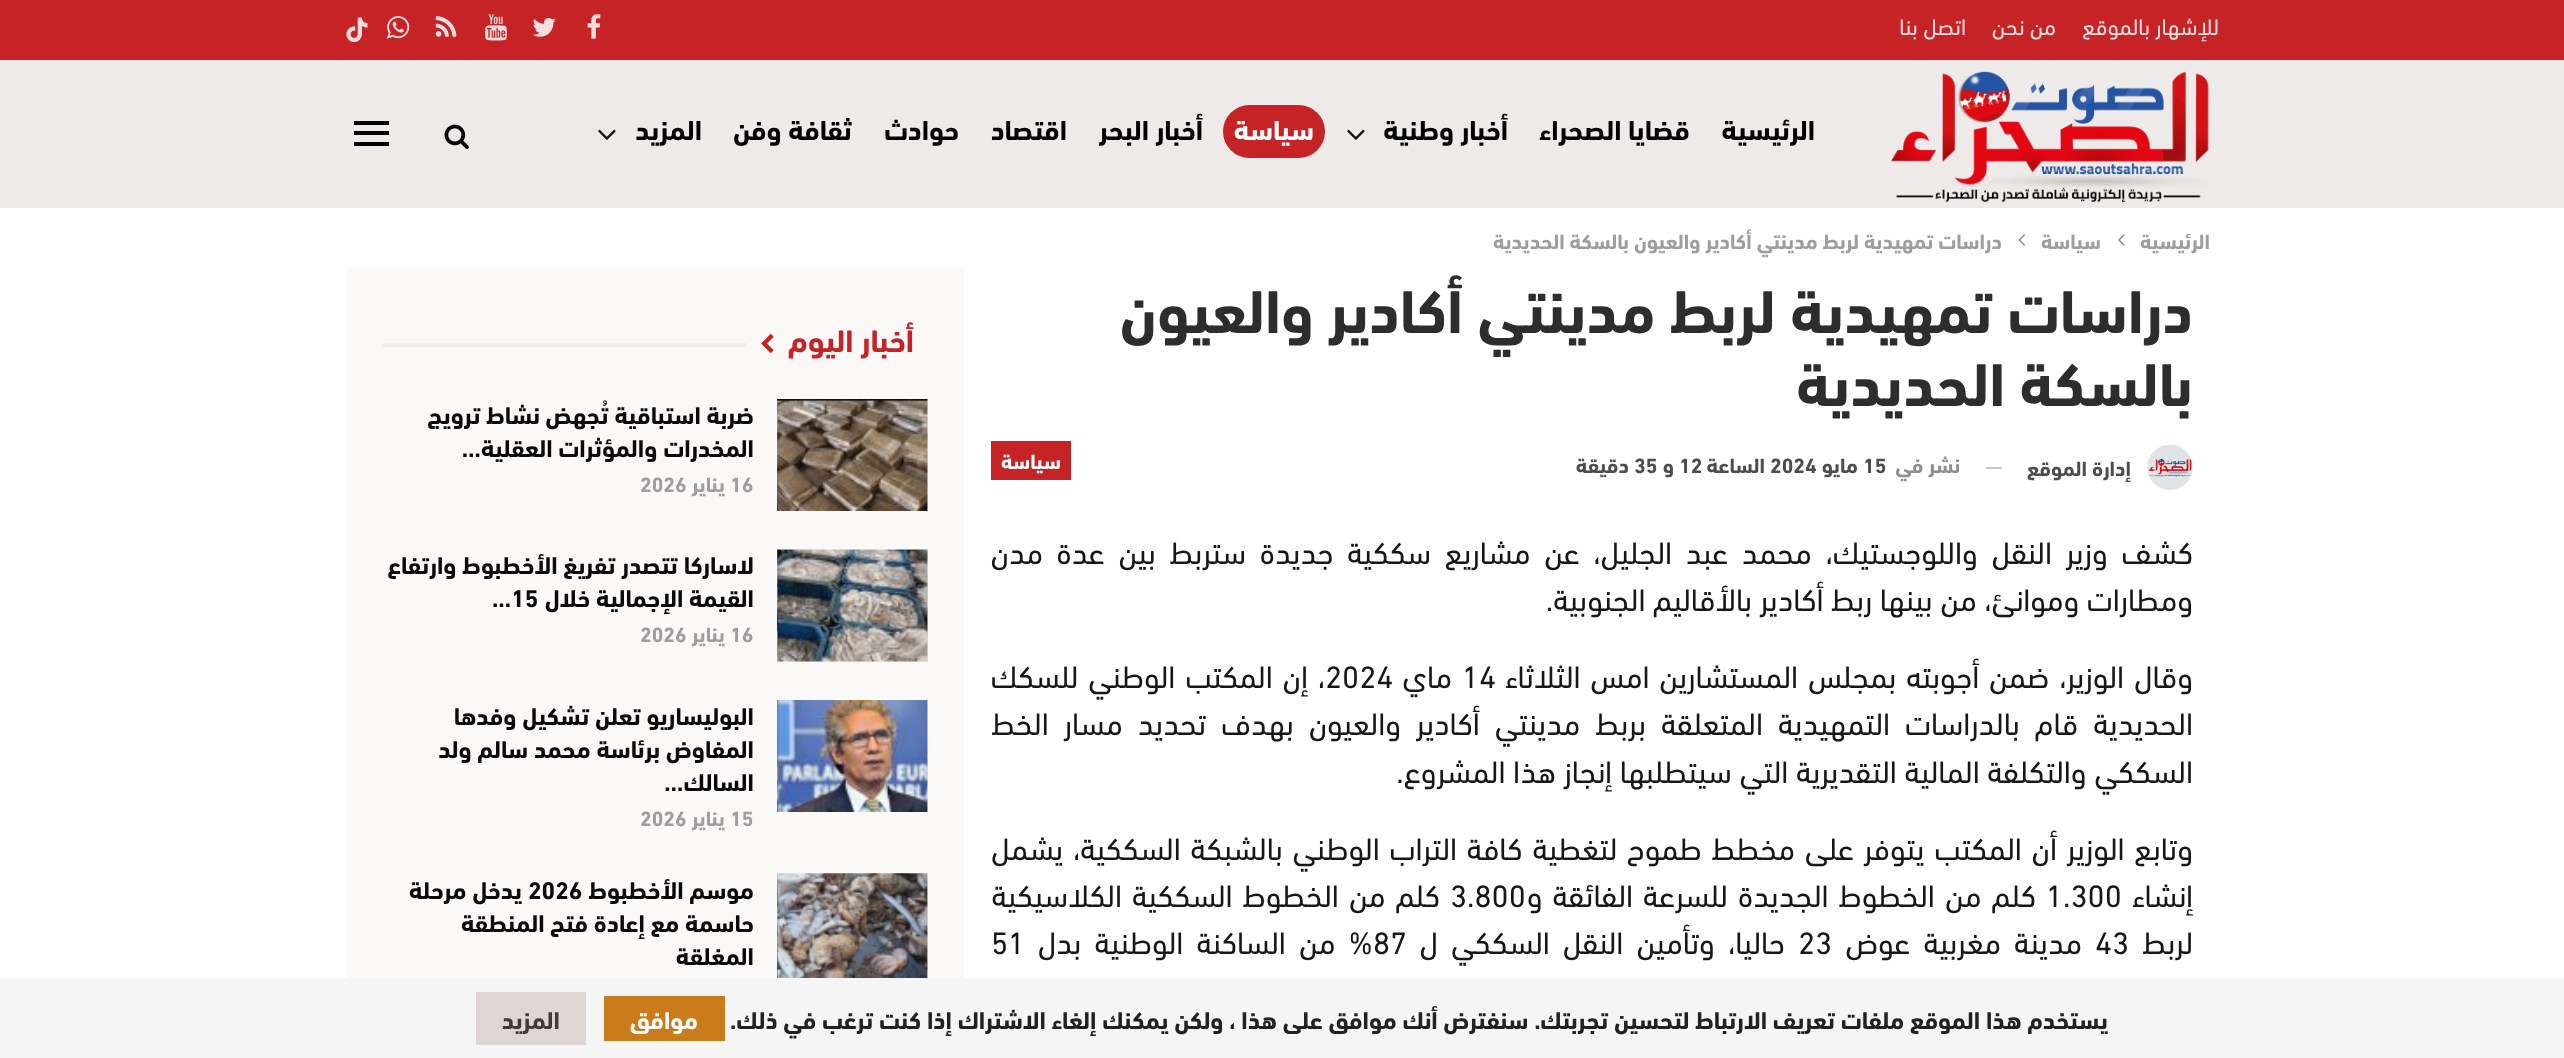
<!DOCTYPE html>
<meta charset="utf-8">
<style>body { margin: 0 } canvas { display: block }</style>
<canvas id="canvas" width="2564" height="1058"></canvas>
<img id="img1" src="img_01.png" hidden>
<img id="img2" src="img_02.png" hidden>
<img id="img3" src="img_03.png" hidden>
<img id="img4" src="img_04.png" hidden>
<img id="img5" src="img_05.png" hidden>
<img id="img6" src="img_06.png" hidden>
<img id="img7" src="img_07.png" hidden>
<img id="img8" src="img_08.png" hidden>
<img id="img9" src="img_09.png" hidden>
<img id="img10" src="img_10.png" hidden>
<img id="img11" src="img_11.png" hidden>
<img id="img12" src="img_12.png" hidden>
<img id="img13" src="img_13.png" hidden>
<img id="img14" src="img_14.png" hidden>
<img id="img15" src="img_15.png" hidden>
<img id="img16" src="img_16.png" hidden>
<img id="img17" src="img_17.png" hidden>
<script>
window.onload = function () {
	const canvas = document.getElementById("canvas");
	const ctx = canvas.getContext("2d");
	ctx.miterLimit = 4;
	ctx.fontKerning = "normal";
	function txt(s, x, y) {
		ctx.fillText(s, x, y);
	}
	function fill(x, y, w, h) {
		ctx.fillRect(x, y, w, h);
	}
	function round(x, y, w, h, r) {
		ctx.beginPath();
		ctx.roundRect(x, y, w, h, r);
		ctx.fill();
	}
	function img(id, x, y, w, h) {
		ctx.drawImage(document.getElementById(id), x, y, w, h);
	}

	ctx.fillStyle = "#FFFFFF";
	fill(0, 0, 2564, 1058);
	ctx.fillStyle = "#EFEAEA";
	fill(0, 60, 2564, 148);
	ctx.fillStyle = "#C62326";
	fill(0, 0, 2564, 60);
	img("img1", 587, 14, 14, 25);
	img("img2", 532, 18, 24, 19);
	img("img3", 485, 14, 22, 27);
	img("img4", 435, 16, 22, 21);
	img("img5", 386, 16, 24, 23);
	img("img6", 346, 17, 22, 25);
	img("img7", 1891, 71, 318, 132);
	img("img8", 1347, 129, 18, 11);
	round(1223, 105, 102, 53, 26.5);
	img("img8", 598, 129, 18, 11);
	img("img9", 444, 124, 25, 25);
	ctx.fillStyle = "#000000";
	fill(354, 131, 35, 4);
	fill(354, 121, 35, 4);
	fill(354, 142, 35, 4);
	img("img10", 2118, 234, 7, 12);
	img("img11", 2018, 234, 7, 12);
	img("img12", 2147, 444, 46, 46);
	ctx.fillStyle = "#C4C4C4";
	fill(1986, 467, 16, 2);
	ctx.fillStyle = "#C62326";
	fill(991, 441, 80, 39);
	ctx.fillStyle = "#FBF8F8";
	fill(347, 268, 617, 710);
	img("img13", 761, 334, 13, 19);
	ctx.fillStyle = "#EEECEC";
	fill(383, 343, 363, 4);
	ctx.fillStyle = "#F5F5F5";
	fill(927, 399, 1, 112);
	img("img14", 777, 399, 151, 112);
	fill(777, 550, 151, 112);
	img("img15", 777, 549, 151, 113);
	fill(927, 700, 1, 112);
	img("img16", 777, 700, 151, 112);
	fill(777, 873, 151, 105);
	img("img17", 777, 873, 151, 105);
	fill(0, 978, 2564, 80);
	ctx.fillStyle = "#C97C19";
	fill(604, 996, 121, 45);
	ctx.fillStyle = "#DFD5D5";
	fill(476, 992, 110, 53);
	ctx.direction = "rtl";
	ctx.font = "22.75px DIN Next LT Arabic";
	ctx.fillStyle = "#F6DEDE";
	txt("للإشهار بالموقع", 2219, 35);
	txt("من نحن", 2056, 35);
	txt("اتصل بنا", 1966, 35);
	ctx.font = "bold 28px DIN Next LT Arabic";
	ctx.fillStyle = "#000000";
	txt("الرئيسية", 1815, 140);
	txt("قضايا الصحراء", 1690, 140);
	txt("أخبار وطنية", 1508, 140);
	ctx.fillStyle = "#FFFFFF";
	txt("سياسة", 1314, 140);
	ctx.fillStyle = "#000000";
	txt("أخبار البحر", 1203, 140);
	txt("اقتصاد", 1067, 140);
	txt("حوادث", 959, 140);
	txt("ثقافة وفن", 852, 140);
	txt("المزيد", 702, 140);
	ctx.font = "bold 21px DIN Next LT Arabic";
	ctx.fillStyle = "#9E9E9E";
	txt("الرئيسية", 2210, 249);
	txt("سياسة", 2101, 249);
	txt("دراسات تمهيدية لربط مدينتي أكادير والعيون بالسكة الحديدية", 2002, 249);
	ctx.font = "bold 61.25px DIN Next LT Arabic";
	ctx.fillStyle = "#2D2D2D";
	txt("دراسات تمهيدية لربط مدينتي أكادير والعيون", 2193, 333);
	txt("بالسكة الحديدية", 2193, 406);
	ctx.font = "bold 21px DIN Next LT Arabic";
	ctx.fillStyle = "#4D4D4D";
	txt("إدارة الموقع", 2131, 476);
	ctx.fillStyle = "#8F8F8F";
	txt("نشر في", 1960, 473);
	ctx.direction = "ltr";
	ctx.fillStyle = "#4D4D4D";
	txt("15", 1863, 473);
	ctx.direction = "rtl";
	txt("مايو", 1858, 473);
	ctx.direction = "ltr";
	txt("2024", 1770, 473);
	ctx.direction = "rtl";
	txt("الساعة", 1765, 473);
	ctx.direction = "ltr";
	txt("12", 1679, 473);
	ctx.direction = "rtl";
	txt("و", 1674, 473);
	ctx.direction = "ltr";
	txt("35", 1634, 473);
	ctx.direction = "rtl";
	txt("دقيقة", 1629, 473);
	ctx.fillStyle = "#FFFFFF";
	txt("سياسة", 1061, 469);
	ctx.wordSpacing = "6.1px";
	ctx.font = "31.5px DIN Next LT Arabic";
	ctx.fillStyle = "#181717";
	txt("كشف وزير النقل واللوجستيك، محمد عبد الجليل، عن مشاريع سككية جديدة ستربط بين عدة مدن", 2193, 564);
	ctx.wordSpacing = "0px";
	txt("ومطارات وموانئ، من بينها ربط أكادير بالأقاليم الجنوبية.", 2193, 611);
	ctx.wordSpacing = "2.25px";
	txt("وقال الوزير، ضمن أجوبته بمجلس المستشارين امس الثلاثاء", 2193, 688);
	ctx.wordSpacing = "0px";
	ctx.direction = "ltr";
	txt("14", 1462, 688);
	ctx.direction = "rtl";
	txt("ماي", 1452, 688);
	ctx.direction = "ltr";
	txt("2024", 1325, 688);
	ctx.wordSpacing = "2.25px";
	ctx.direction = "rtl";
	txt("، إن المكتب الوطني للسكك", 1325, 688);
	ctx.wordSpacing = "7.4px";
	txt("الحديدية قام بالدراسات التمهيدية المتعلقة بربط مدينتي أكادير والعيون بهدف تحديد مسار الخط", 2193, 735);
	ctx.wordSpacing = "0px";
	txt("السككي والتكلفة المالية التقديرية التي سيتطلبها إنجاز هذا المشروع.", 2193, 783);
	ctx.wordSpacing = "2.25px";
	txt("وتابع الوزير أن المكتب يتوفر على مخطط طموح لتغطية كافة التراب الوطني بالشبكة السككية، يشمل", 2193, 860);
	ctx.wordSpacing = "0px";
	txt("إنشاء", 2193, 907);
	ctx.direction = "ltr";
	txt("1.300", 2046, 907);
	ctx.wordSpacing = "2.5px";
	ctx.direction = "rtl";
	txt("كلم من الخطوط الجديدة للسرعة الفائقة و", 2036, 907);
	ctx.wordSpacing = "0px";
	ctx.direction = "ltr";
	txt("3.800", 1450, 907);
	ctx.wordSpacing = "2.5px";
	ctx.direction = "rtl";
	txt("كلم من الخطوط السككية الكلاسيكية", 1440, 907);
	ctx.wordSpacing = "0px";
	txt("لربط", 2193, 954);
	ctx.direction = "ltr";
	txt("43", 2095, 954);
	ctx.wordSpacing = "5.5px";
	ctx.direction = "rtl";
	txt("مدينة مغربية عوض", 2082, 954);
	ctx.wordSpacing = "0px";
	ctx.direction = "ltr";
	txt("23", 1798, 954);
	ctx.wordSpacing = "5.5px";
	ctx.direction = "rtl";
	txt("حاليا، وتأمين النقل السككي ل", 1785, 954);
	ctx.wordSpacing = "0px";
	ctx.direction = "ltr";
	txt("87", 1373, 954);
	ctx.wordSpacing = "5.5px";
	ctx.direction = "rtl";
	txt("% من الساكنة الوطنية بدل", 1373, 954);
	ctx.wordSpacing = "0px";
	ctx.direction = "ltr";
	txt("51", 991, 954);
	ctx.direction = "rtl";
	ctx.font = "bold 31.5px DIN Next LT Arabic";
	ctx.fillStyle = "#C62326";
	txt("أخبار اليوم", 914, 352);
	ctx.font = "bold 24.5px DIN Next LT Arabic";
	ctx.fillStyle = "#0A0A0A";
	txt("ضربة استباقية تُجهض نشاط ترويج", 754, 424);
	txt("المخدرات والمؤثرات العقلية…", 754, 457);
	ctx.direction = "ltr";
	ctx.font = "bold 21px DIN Next LT Arabic";
	ctx.fillStyle = "#9E9E9E";
	txt("16", 730, 492);
	ctx.direction = "rtl";
	txt("يناير", 725, 492);
	ctx.direction = "ltr";
	txt("2026", 640, 492);
	ctx.direction = "rtl";
	ctx.font = "bold 24.5px DIN Next LT Arabic";
	ctx.fillStyle = "#0A0A0A";
	txt("لاساركا تتصدر تفريغ الأخطبوط وارتفاع", 754, 574);
	txt("القيمة الإجمالية خلال", 754, 607);
	ctx.direction = "ltr";
	txt("…15", 492, 607);
	ctx.font = "bold 21px DIN Next LT Arabic";
	ctx.fillStyle = "#9E9E9E";
	txt("16", 730, 642);
	ctx.direction = "rtl";
	txt("يناير", 725, 642);
	ctx.direction = "ltr";
	txt("2026", 640, 642);
	ctx.direction = "rtl";
	ctx.font = "bold 24.5px DIN Next LT Arabic";
	ctx.fillStyle = "#0A0A0A";
	txt("البوليساريو تعلن تشكيل وفدها", 754, 725);
	txt("المفاوض برئاسة محمد سالم ولد", 754, 758);
	txt("السالك…", 754, 791);
	ctx.direction = "ltr";
	ctx.font = "bold 21px DIN Next LT Arabic";
	ctx.fillStyle = "#9E9E9E";
	txt("15", 730, 826);
	ctx.direction = "rtl";
	txt("يناير", 725, 826);
	ctx.direction = "ltr";
	txt("2026", 640, 826);
	ctx.direction = "rtl";
	ctx.font = "bold 24.5px DIN Next LT Arabic";
	ctx.fillStyle = "#0A0A0A";
	txt("موسم الأخطبوط", 754, 899);
	ctx.direction = "ltr";
	txt("2026", 528, 899);
	ctx.direction = "rtl";
	txt("يدخل مرحلة", 522, 899);
	txt("حاسمة مع إعادة فتح المنطقة", 754, 932);
	txt("المغلقة", 754, 965);
	ctx.fillStyle = "#212121";
	txt("يستخدم هذا الموقع ملفات تعريف الارتباط لتحسين تجربتك. سنفترض أنك موافق على هذا ، ولكن يمكنك إلغاء الاشتراك إذا كنت ترغب في ذلك.", 2108, 1029);
	ctx.fillStyle = "#FFFFFF";
	txt("موافق", 698, 1029);
	ctx.fillStyle = "#443939";
	txt("المزيد", 560, 1029);
};
</script>
